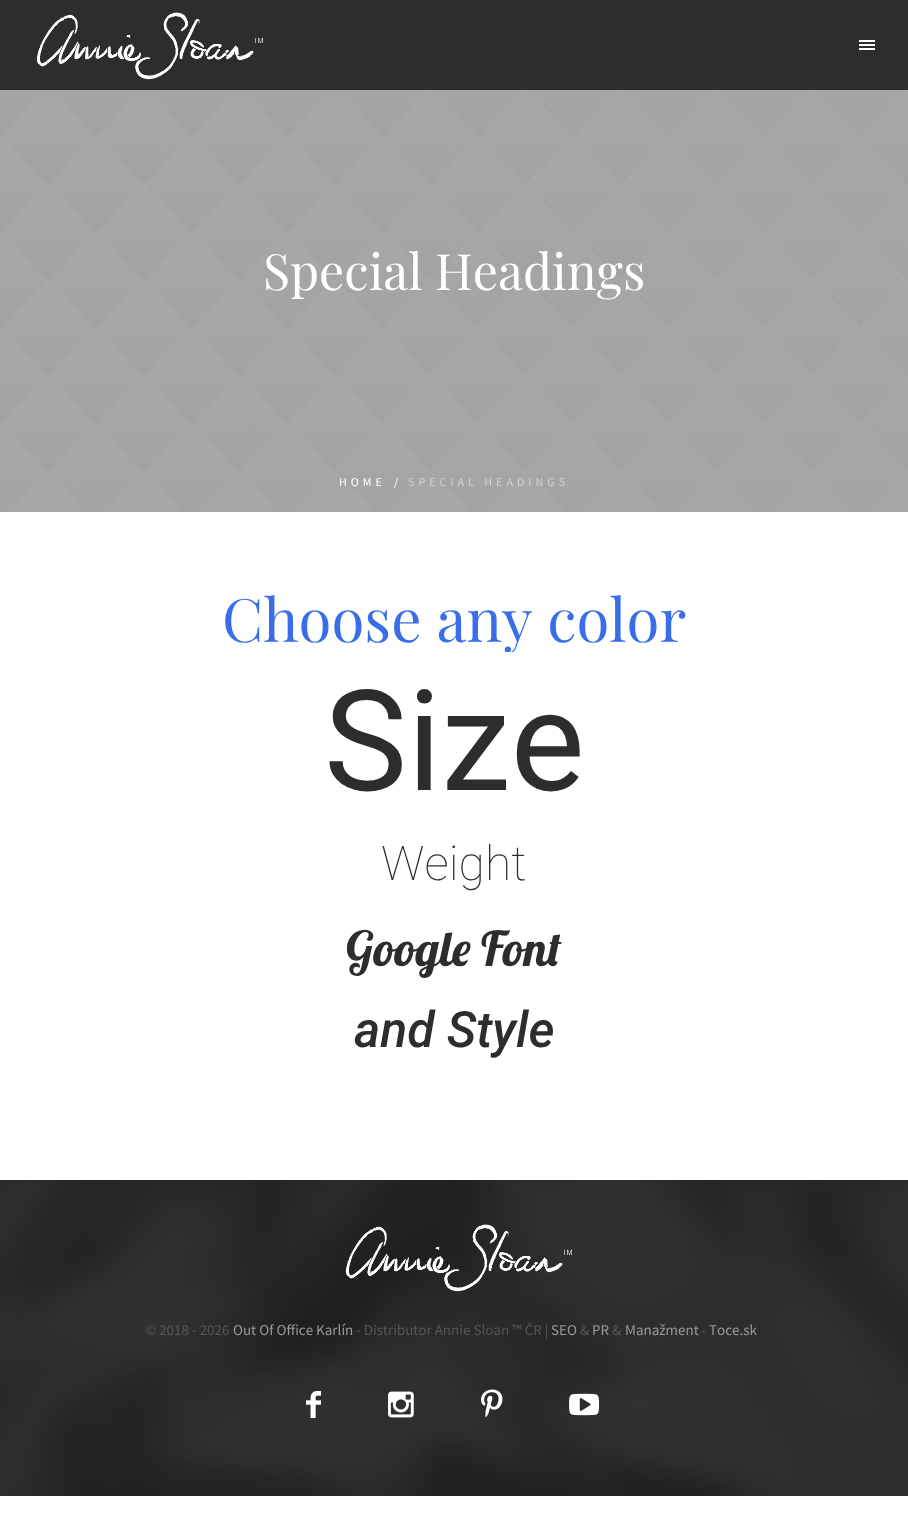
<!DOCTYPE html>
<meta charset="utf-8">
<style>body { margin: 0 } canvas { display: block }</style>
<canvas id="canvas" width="908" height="1524"></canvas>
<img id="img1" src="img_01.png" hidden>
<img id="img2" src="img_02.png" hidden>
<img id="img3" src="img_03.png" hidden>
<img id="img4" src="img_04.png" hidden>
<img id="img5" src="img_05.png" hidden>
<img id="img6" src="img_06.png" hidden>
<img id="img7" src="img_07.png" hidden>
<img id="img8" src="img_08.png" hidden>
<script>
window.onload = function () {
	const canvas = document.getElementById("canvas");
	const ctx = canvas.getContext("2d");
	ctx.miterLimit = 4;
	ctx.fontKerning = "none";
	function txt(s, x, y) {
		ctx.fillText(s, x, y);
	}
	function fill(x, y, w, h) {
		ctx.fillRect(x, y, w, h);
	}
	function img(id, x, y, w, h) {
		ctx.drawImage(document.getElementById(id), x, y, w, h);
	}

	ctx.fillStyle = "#FFFFFF";
	fill(0, 0, 908, 1524);
	ctx.fillStyle = "#2D2D2D";
	fill(0, 0, 908, 90);
	img("img1", 36, 12, 227, 68);
	ctx.fillStyle = "#FFFFFF";
	fill(859, 44, 16, 2);
	fill(859, 40, 16, 2);
	fill(859, 48, 16, 2);
	img("img2", 0, 90, 908, 422);
	img("img3", 0, 1180, 908, 316);
	img("img4", 345, 1224, 227, 68);
	img("img5", 306, 1391, 15, 27);
	img("img6", 388, 1391, 26, 27);
	img("img7", 481, 1389, 22, 29);
	img("img8", 569, 1393, 31, 23);
	ctx.font = "50px Playfair Display";
	txt("Special Headings", 263, 290);
	ctx.letterSpacing = "4px";
	ctx.font = "12px Source Sans Pro";
	txt("HOME", 339, 486);
	txt("/", 394, 486);
	ctx.fillStyle = "#D2D2D2";
	txt("SPECIAL HEADINGS", 408, 486);
	ctx.save();
	ctx.beginPath();
	ctx.rect(20, 582, 868, 70);
	ctx.clip();
	ctx.letterSpacing = "0px";
	ctx.font = "60px Playfair Display";
	ctx.fillStyle = "#3A6EE8";
	txt("Choose any color", 222, 642);
	ctx.restore();
	ctx.letterSpacing = "0px";
	ctx.font = "140px Roboto";
	ctx.fillStyle = "#2D2D2D";
	txt("Size", 324, 790);
	ctx.font = "100 48px Roboto";
	txt("Weight", 381, 880);
	ctx.font = "48px Lobster";
	txt("Google Font", 346, 966);
	ctx.font = "italic 500 50px Roboto";
	txt("and Style", 354, 1047);
	ctx.font = "15px Source Sans Pro";
	ctx.fillStyle = "#575757";
	txt("© 2018 - 2026", 145, 1335);
	ctx.fillStyle = "#999999";
	txt("Out Of Office Karlín", 233, 1335);
	ctx.fillStyle = "#575757";
	txt("- Distributor Annie Sloan ™ ČR |", 356, 1335);
	ctx.fillStyle = "#999999";
	txt("SEO", 551, 1335);
	ctx.fillStyle = "#575757";
	txt("&", 580, 1335);
	ctx.fillStyle = "#999999";
	txt("PR", 592, 1335);
	ctx.fillStyle = "#575757";
	txt("&", 612, 1335);
	ctx.fillStyle = "#999999";
	txt("Manažment", 625, 1335);
	ctx.fillStyle = "#575757";
	txt("-", 701, 1335);
	ctx.fillStyle = "#999999";
	txt("Toce.sk", 709, 1335);
};
</script>
